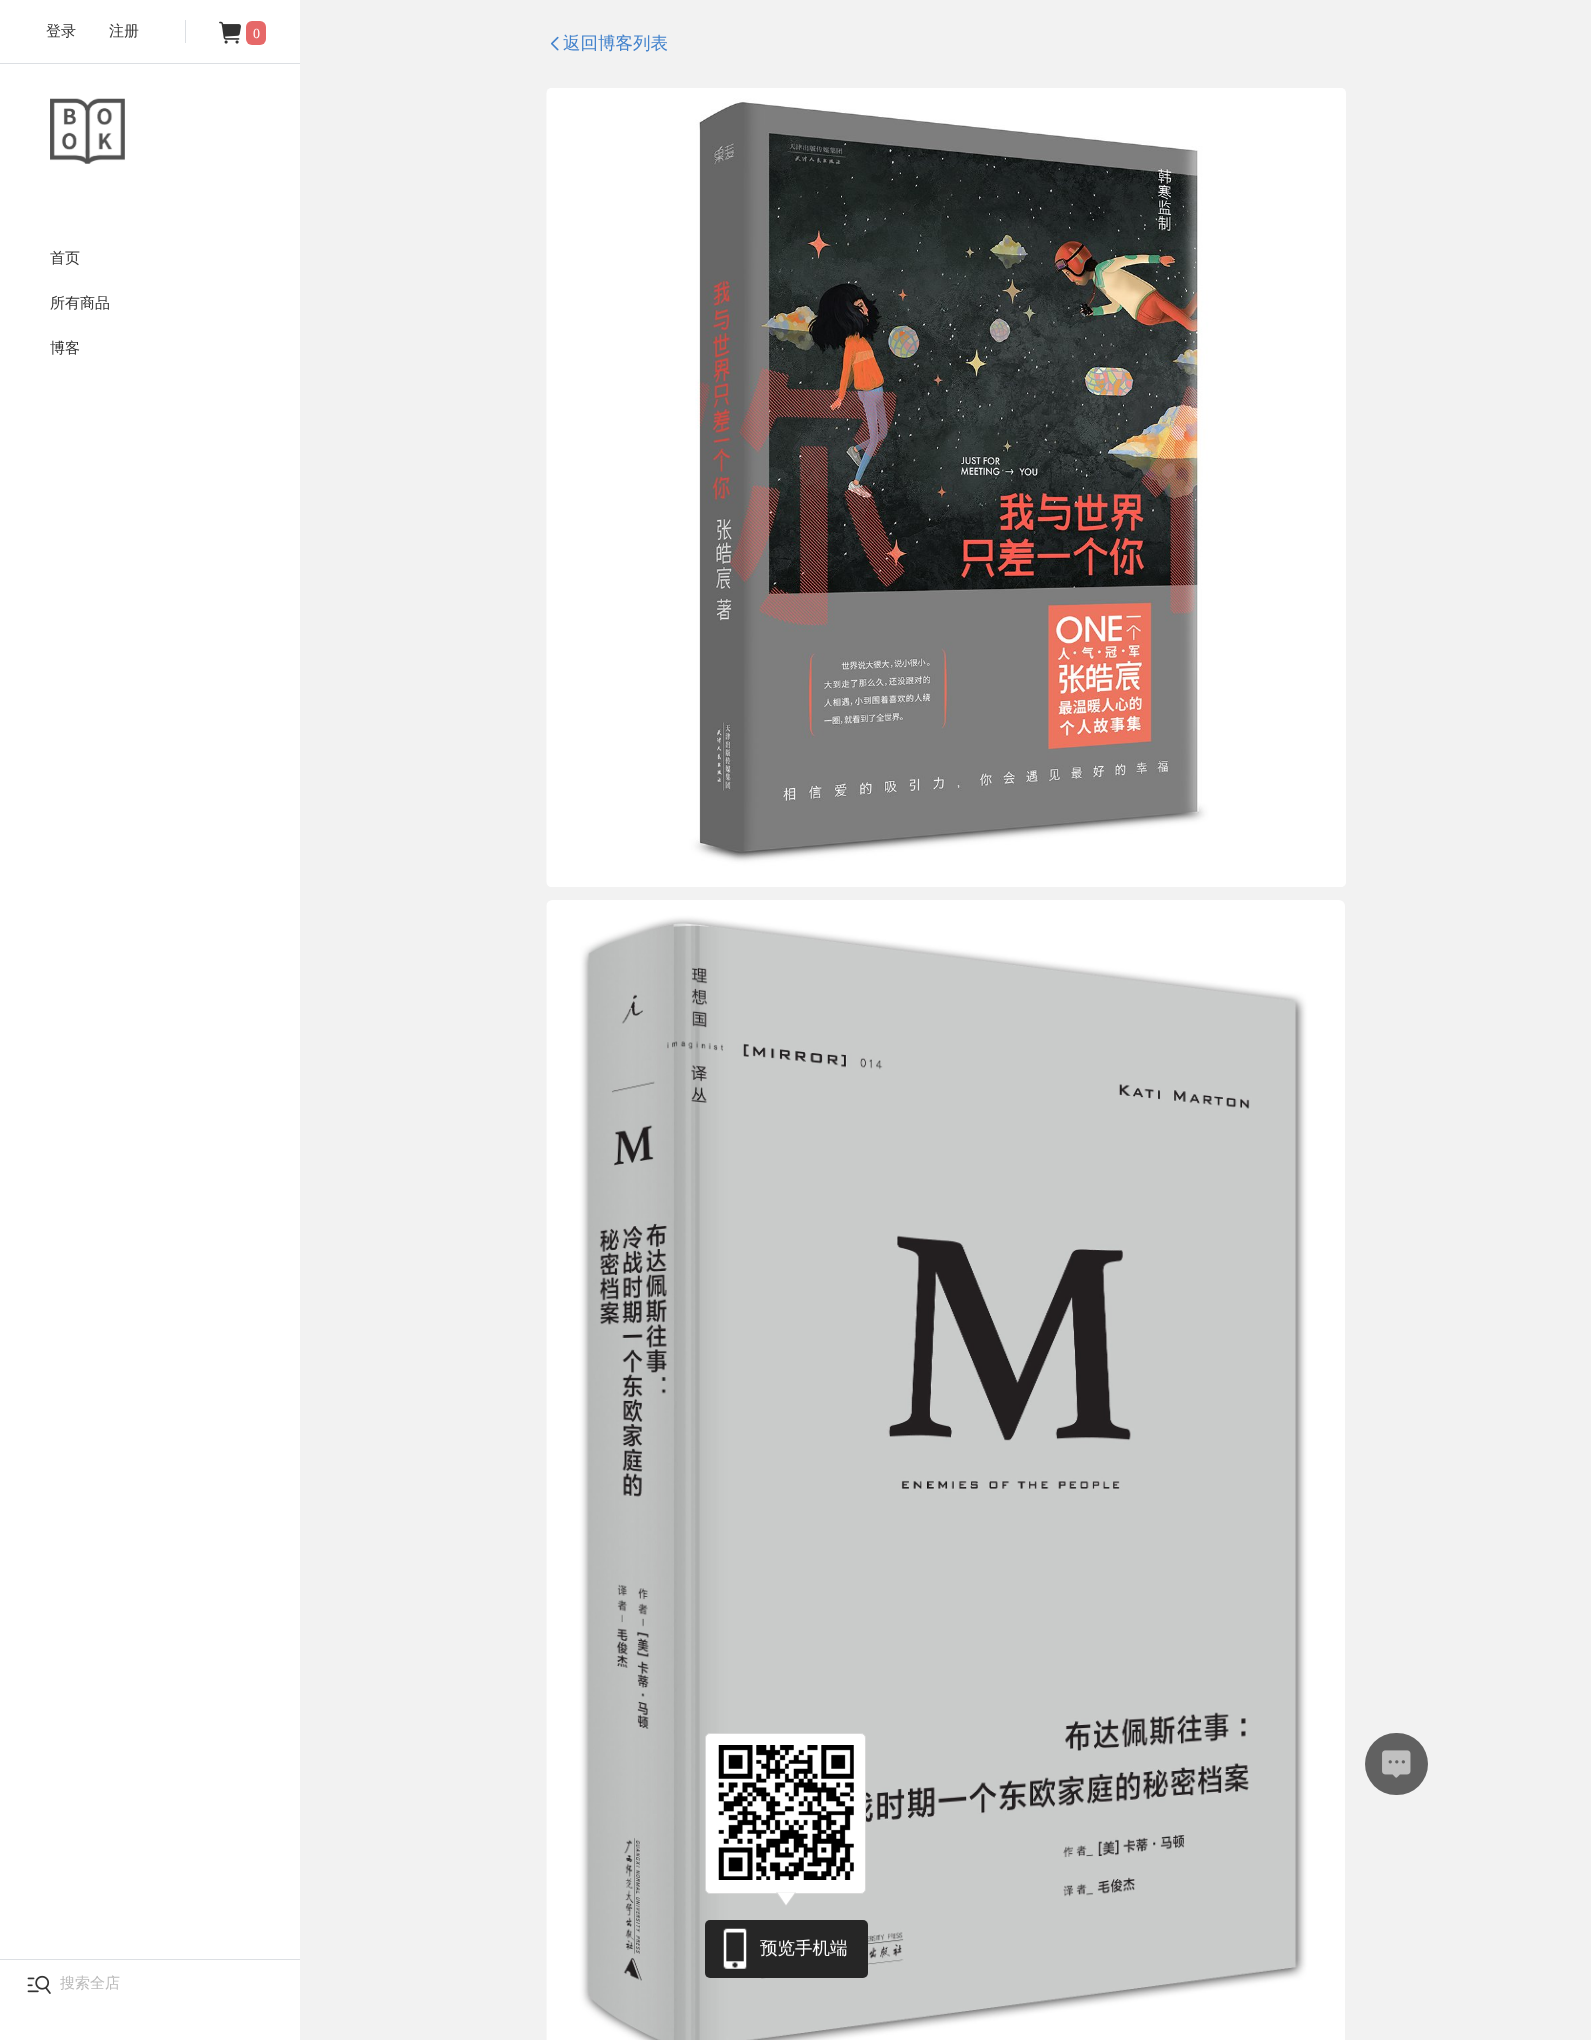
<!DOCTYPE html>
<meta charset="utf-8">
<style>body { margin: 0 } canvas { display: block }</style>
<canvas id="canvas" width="1591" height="2040"></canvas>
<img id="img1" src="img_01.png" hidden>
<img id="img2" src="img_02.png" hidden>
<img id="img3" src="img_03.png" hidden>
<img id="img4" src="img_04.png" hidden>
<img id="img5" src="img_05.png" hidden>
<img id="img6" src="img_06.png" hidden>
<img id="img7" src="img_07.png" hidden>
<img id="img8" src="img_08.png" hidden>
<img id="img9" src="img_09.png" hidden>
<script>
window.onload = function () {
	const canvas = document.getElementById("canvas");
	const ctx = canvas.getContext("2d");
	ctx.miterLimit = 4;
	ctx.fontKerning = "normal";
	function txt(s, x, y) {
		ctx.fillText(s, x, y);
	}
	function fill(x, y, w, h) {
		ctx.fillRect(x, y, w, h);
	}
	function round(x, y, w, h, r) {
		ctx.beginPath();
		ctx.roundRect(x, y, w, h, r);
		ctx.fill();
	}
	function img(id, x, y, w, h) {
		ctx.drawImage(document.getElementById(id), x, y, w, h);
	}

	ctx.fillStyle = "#F2F2F2";
	fill(0, 0, 1591, 2040);
	ctx.fillStyle = "#FFFFFF";
	fill(0, 0, 300, 2040);
	ctx.fillStyle = "#DCDFE3";
	fill(0, 63, 300, 1);
	fill(185, 20, 1, 23);
	img("img1", 219, 21, 22, 23);
	ctx.fillStyle = "#E66868";
	round(246, 21, 20, 24, 6);
	img("img2", 50, 98, 75, 66);
	ctx.fillStyle = "#DCDFE3";
	fill(0, 1959, 300, 1);
	img("img3", 27, 1975, 24, 19);
	img("img4", 550, 36, 9, 15);
	img("img5", 546, 88, 800, 799);
	img("img6", 546, 900, 799, 1140);
	ctx.fillStyle = "#616161";
	round(1365, 1733, 63, 62, 31);
	img("img7", 1382, 1750, 29, 28);
	ctx.fillStyle = "#262626";
	round(705, 1920, 163, 58, 5);
	img("img8", 723, 1928, 24, 41);
	ctx.fillStyle = "#FFFFFF";
	ctx.beginPath();
	ctx.roundRect(705.5, 1733.5, 160, 160, 4.5);
	ctx.fill();
	ctx.strokeStyle = "#D8D8D8";
	ctx.stroke();
	img("img9", 718, 1745, 136, 135);
	ctx.fillStyle = "#D8D8D8";
	ctx.beginPath();
	ctx.moveTo(776, 1892.5);
	ctx.lineTo(796, 1892.5);
	ctx.lineTo(786, 1906);
	ctx.closePath();
	ctx.fill();
	ctx.fillStyle = "#FFFFFF";
	ctx.beginPath();
	ctx.moveTo(777.5, 1892.5);
	ctx.lineTo(795, 1892.5);
	ctx.lineTo(786, 1905);
	ctx.closePath();
	ctx.fill();
	ctx.font = "500 15px WenQuanYi Zen Hei";
	ctx.fillStyle = "#333333";
	txt("登录", 46, 36);
	txt("注册", 109, 36);
	ctx.font = "14px Liberation Serif";
	ctx.fillStyle = "#FFFFFF";
	txt("0", 253, 38);
	ctx.font = "500 15px WenQuanYi Zen Hei";
	ctx.fillStyle = "#333333";
	txt("首页", 50, 263);
	txt("所有商品", 50, 308);
	txt("博客", 50, 353);
	ctx.fillStyle = "#BBBBBB";
	txt("搜索全店", 60, 1988);
	ctx.font = "500 17.5px WenQuanYi Zen Hei";
	ctx.fillStyle = "#4282CC";
	txt("返回博客列表", 563, 49);
	ctx.fillStyle = "#FFFFFF";
	txt("预览手机端", 760, 1954);
};
</script>
